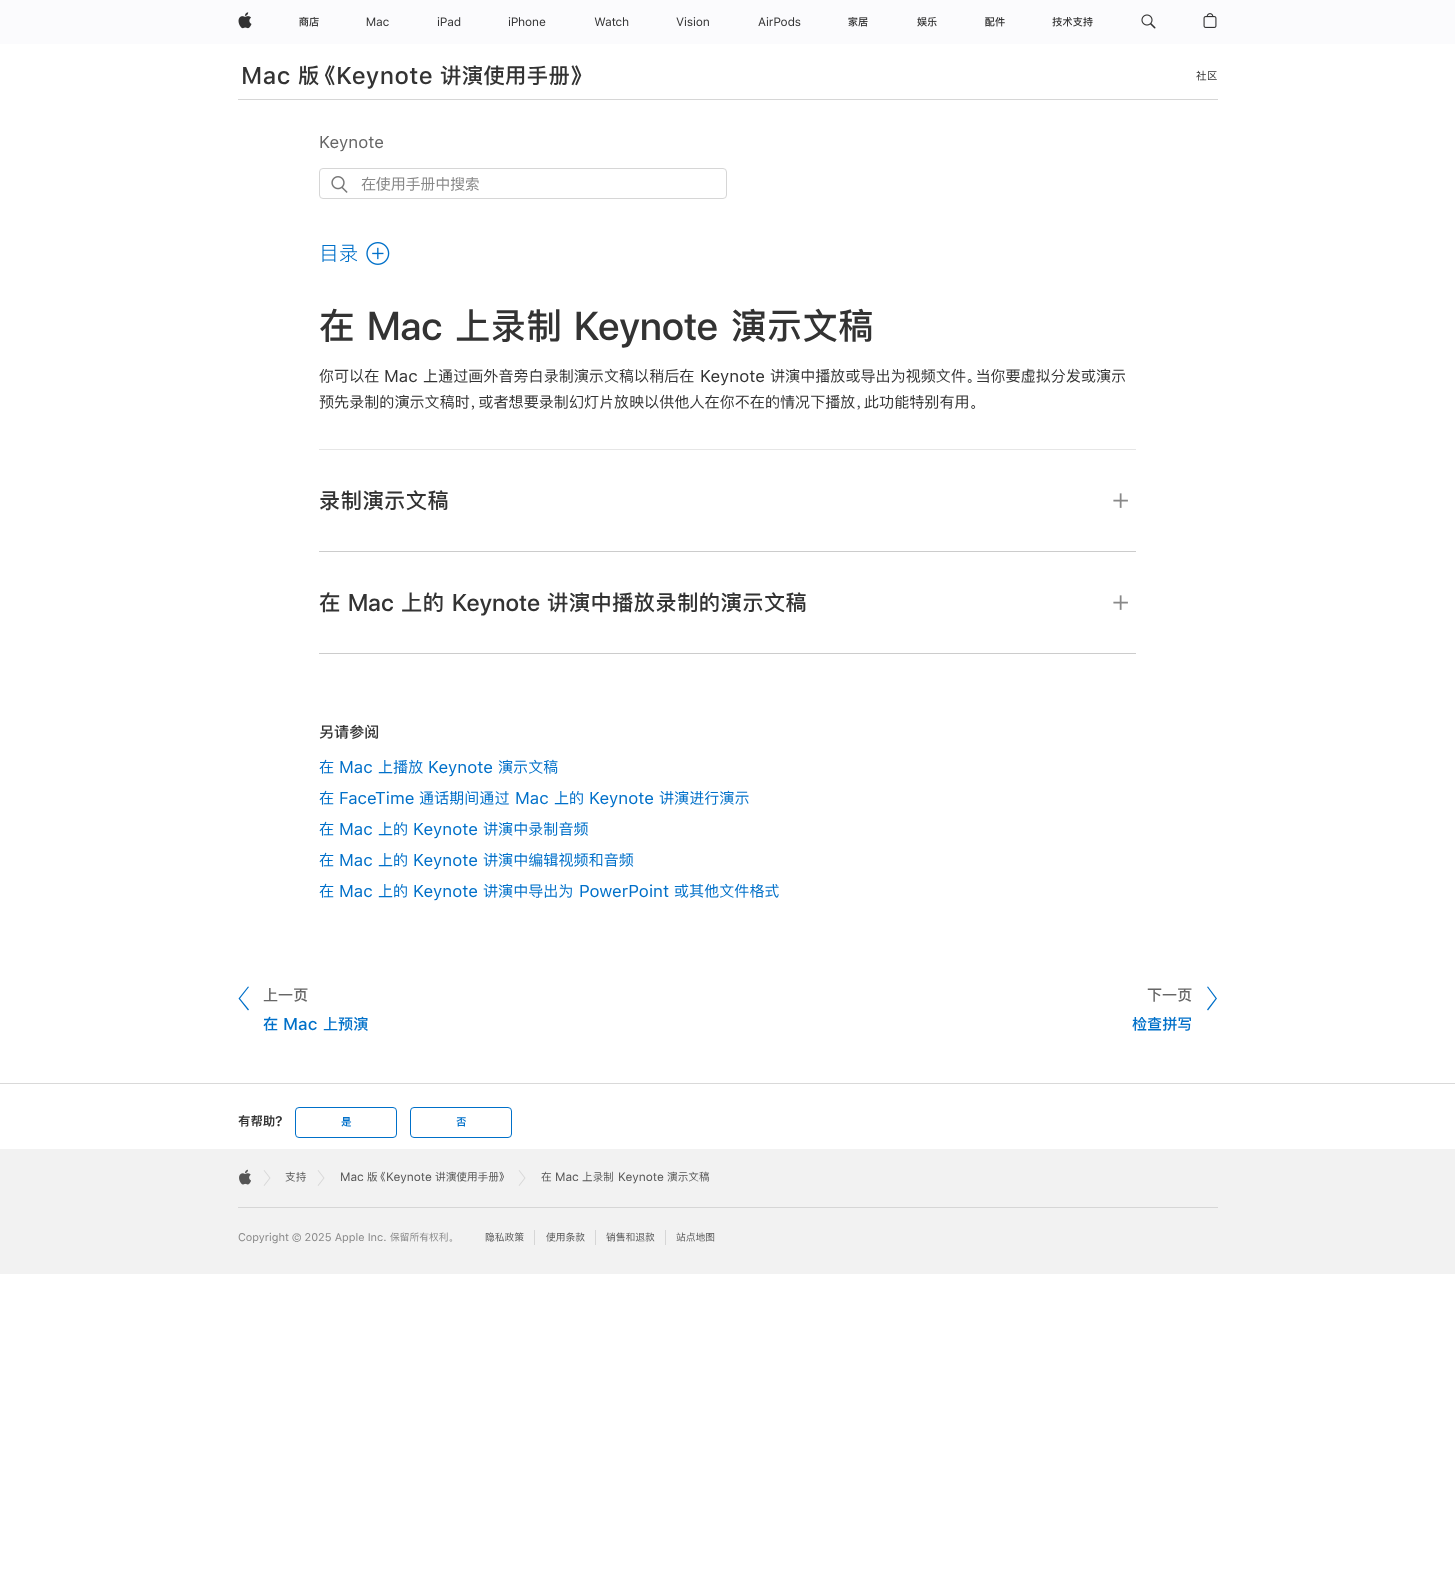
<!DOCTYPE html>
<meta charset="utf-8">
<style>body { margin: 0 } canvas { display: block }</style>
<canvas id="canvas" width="1455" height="1573"></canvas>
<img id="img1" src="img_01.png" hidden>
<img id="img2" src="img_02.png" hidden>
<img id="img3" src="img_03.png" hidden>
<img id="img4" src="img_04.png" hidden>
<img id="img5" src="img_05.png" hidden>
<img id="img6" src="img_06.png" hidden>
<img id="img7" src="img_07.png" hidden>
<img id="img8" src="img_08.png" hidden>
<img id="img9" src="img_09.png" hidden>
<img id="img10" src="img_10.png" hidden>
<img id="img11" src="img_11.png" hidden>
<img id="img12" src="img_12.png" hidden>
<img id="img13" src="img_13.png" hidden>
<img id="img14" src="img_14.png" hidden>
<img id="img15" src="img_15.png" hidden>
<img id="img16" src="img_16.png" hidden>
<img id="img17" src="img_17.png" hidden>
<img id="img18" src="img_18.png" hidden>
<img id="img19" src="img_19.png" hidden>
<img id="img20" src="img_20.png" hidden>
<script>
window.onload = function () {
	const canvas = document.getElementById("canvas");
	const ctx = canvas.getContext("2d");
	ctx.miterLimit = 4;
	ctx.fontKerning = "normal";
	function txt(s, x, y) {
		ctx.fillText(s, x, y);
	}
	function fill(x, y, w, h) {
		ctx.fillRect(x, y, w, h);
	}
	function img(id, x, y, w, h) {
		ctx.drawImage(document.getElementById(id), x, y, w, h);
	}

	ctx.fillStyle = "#FFFFFF";
	fill(0, 0, 1455, 1573);
	ctx.fillStyle = "#FBFBFD";
	fill(0, 0, 1455, 44);
	img("img1", 238, 12, 14, 17);
	img("img2", 299, 16, 20, 11);
	img("img3", 366, 17, 23, 10);
	img("img4", 437, 17, 24, 10);
	img("img5", 508, 17, 38, 10);
	img("img6", 594, 17, 35, 10);
	img("img7", 676, 17, 33, 10);
	img("img8", 758, 17, 43, 10);
	img("img9", 848, 17, 20, 10);
	img("img10", 917, 17, 20, 10);
	img("img11", 985, 17, 20, 10);
	img("img12", 1052, 17, 41, 10);
	img("img13", 1141, 14, 15, 15);
	img("img14", 1203, 13, 14, 15);
	ctx.fillStyle = "#D6D6D6";
	fill(238, 99, 980, 1);
	ctx.beginPath();
	ctx.roundRect(319.5, 168.5, 407, 30, 3.5);
	ctx.strokeStyle = "#D6D6D6";
	ctx.stroke();
	img("img15", 331, 176, 17, 17);
	img("img16", 366, 242, 24, 23);
	ctx.fillStyle = "#E6E6E6";
	fill(319, 449, 817, 1);
	img("img17", 1113, 493, 15, 15);
	ctx.fillStyle = "#CCCCCC";
	fill(319, 551, 817, 1);
	img("img18", 1113, 595, 15, 15);
	fill(319, 653, 817, 1);
	ctx.fillStyle = "#0070C9";
	ctx.beginPath();
	ctx.moveTo(248, 986.5);
	ctx.lineTo(238.5, 998.5);
	ctx.lineTo(248, 1010.5);
	ctx.lineTo(249, 1009.5);
	ctx.lineTo(240, 998.5);
	ctx.lineTo(249, 987);
	ctx.closePath();
	ctx.fill();
	ctx.beginPath();
	ctx.moveTo(1207, 987);
	ctx.lineTo(1215.5, 998.5);
	ctx.lineTo(1207, 1009.5);
	ctx.lineTo(1208, 1010.5);
	ctx.lineTo(1217, 998.5);
	ctx.lineTo(1208, 986.5);
	ctx.closePath();
	ctx.fill();
	ctx.fillStyle = "#D9D9D9";
	fill(0, 1083, 1455, 1);
	ctx.beginPath();
	ctx.roundRect(295.5, 1107.5, 101, 30, 3.5);
	ctx.strokeStyle = "#0070C9";
	ctx.stroke();
	ctx.beginPath();
	ctx.roundRect(410.5, 1107.5, 101, 30, 3.5);
	ctx.stroke();
	ctx.fillStyle = "#F2F2F2";
	fill(0, 1149, 1455, 125);
	img("img19", 239, 1169, 12, 16);
	img("img20", 263, 1170, 8, 16);
	img("img20", 317, 1170, 8, 16);
	img("img20", 518, 1170, 8, 16);
	ctx.fillStyle = "#D6D6D6";
	fill(238, 1207, 980, 1);
	fill(534, 1230, 1, 15);
	fill(595, 1230, 1, 15);
	fill(665, 1230, 1, 15);
	ctx.letterSpacing = "0.4px";
	ctx.font = "500 24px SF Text";
	ctx.fillStyle = "#333333";
	txt("Mac", 241, 84);
	ctx.font = "500 24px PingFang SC";
	txt("版《", 298, 84);
	ctx.font = "500 24px SF Text";
	txt("Keynote", 336, 84);
	ctx.font = "500 24px PingFang SC";
	txt("讲演使用手册》", 440, 84);
	ctx.letterSpacing = "0px";
	ctx.font = "12px PingFang SC";
	txt("社区", 1196, 80);
	ctx.font = "17px SF Text";
	ctx.fillStyle = "#666666";
	txt("Keynote", 319, 148);
	ctx.letterSpacing = "-0.25px";
	ctx.font = "17px PingFang SC";
	ctx.fillStyle = "#888888";
	txt("在使用手册中搜索", 361, 190);
	ctx.letterSpacing = "0px";
	ctx.font = "300 22px PingFang SC";
	ctx.fillStyle = "#0070C9";
	txt("目录", 319, 261);
	ctx.letterSpacing = "0.25px";
	ctx.font = "500 40px PingFang SC";
	ctx.fillStyle = "#333333";
	txt("在", 319, 340);
	ctx.font = "500 40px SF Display";
	txt("Mac", 367, 340);
	ctx.font = "500 40px PingFang SC";
	txt("上录制", 455, 340);
	ctx.font = "500 40px SF Display";
	txt("Keynote", 574, 340);
	ctx.font = "500 40px PingFang SC";
	txt("演示文稿", 731, 340);
	ctx.letterSpacing = "0px";
	ctx.font = "17px PingFang SC";
	txt("你可以在", 319, 382);
	ctx.font = "17px SF Text";
	txt("Mac", 384, 382);
	ctx.font = "17px PingFang SC";
	txt("上通过画外音旁白录制演示文稿以稍后在", 423, 382);
	ctx.font = "17px SF Text";
	txt("Keynote", 700, 382);
	ctx.font = "17px PingFang SC";
	txt("讲演中播放或导出为视频文件。当你要虚拟分发或演示", 770, 382);
	txt("预先录制的演示文稿时，或者想要录制幻灯片放映以供他人在你不在的情况下播放，此功能特别有用。", 319, 408);
	ctx.letterSpacing = "0.4px";
	ctx.font = "500 24px PingFang SC";
	txt("录制演示文稿", 319, 509);
	txt("在", 319, 611);
	ctx.font = "500 24px SF Display";
	txt("Mac", 348, 611);
	ctx.font = "500 24px PingFang SC";
	txt("上的", 401, 611);
	ctx.font = "500 24px SF Display";
	txt("Keynote", 452, 611);
	ctx.font = "500 24px PingFang SC";
	txt("讲演中播放录制的演示文稿", 547, 611);
	ctx.letterSpacing = "0px";
	ctx.font = "500 17px PingFang SC";
	txt("另请参阅", 319, 738);
	ctx.font = "17px PingFang SC";
	ctx.fillStyle = "#0070C9";
	txt("在", 319, 773);
	ctx.font = "17px SF Text";
	txt("Mac", 339, 773);
	ctx.font = "17px PingFang SC";
	txt("上播放", 378, 773);
	ctx.font = "17px SF Text";
	txt("Keynote", 428, 773);
	ctx.font = "17px PingFang SC";
	txt("演示文稿", 498, 773);
	txt("在", 319, 804);
	ctx.font = "17px SF Text";
	txt("FaceTime", 339, 804);
	ctx.font = "17px PingFang SC";
	txt("通话期间通过", 419, 804);
	ctx.font = "17px SF Text";
	txt("Mac", 515, 804);
	ctx.font = "17px PingFang SC";
	txt("上的", 554, 804);
	ctx.font = "17px SF Text";
	txt("Keynote", 589, 804);
	ctx.font = "17px PingFang SC";
	txt("讲演进行演示", 659, 804);
	txt("在", 319, 835);
	ctx.font = "17px SF Text";
	txt("Mac", 339, 835);
	ctx.font = "17px PingFang SC";
	txt("上的", 378, 835);
	ctx.font = "17px SF Text";
	txt("Keynote", 413, 835);
	ctx.font = "17px PingFang SC";
	txt("讲演中录制音频", 483, 835);
	txt("在", 319, 866);
	ctx.font = "17px SF Text";
	txt("Mac", 339, 866);
	ctx.font = "17px PingFang SC";
	txt("上的", 378, 866);
	ctx.font = "17px SF Text";
	txt("Keynote", 413, 866);
	ctx.font = "17px PingFang SC";
	txt("讲演中编辑视频和音频", 483, 866);
	txt("在", 319, 897);
	ctx.font = "17px SF Text";
	txt("Mac", 339, 897);
	ctx.font = "17px PingFang SC";
	txt("上的", 378, 897);
	ctx.font = "17px SF Text";
	txt("Keynote", 413, 897);
	ctx.font = "17px PingFang SC";
	txt("讲演中导出为", 483, 897);
	ctx.font = "17px SF Text";
	txt("PowerPoint", 579, 897);
	ctx.font = "17px PingFang SC";
	txt("或其他文件格式", 674, 897);
	ctx.font = "500 17px PingFang SC";
	ctx.fillStyle = "#666666";
	txt("上一页", 263, 1001);
	ctx.fillStyle = "#0070C9";
	txt("在", 263, 1030);
	ctx.font = "500 17px SF Text";
	txt("Mac", 283, 1030);
	ctx.font = "500 17px PingFang SC";
	txt("上预演", 323, 1030);
	ctx.fillStyle = "#666666";
	txt("下一页", 1147, 1001);
	ctx.fillStyle = "#0070C9";
	txt("检查拼写", 1132, 1030);
	ctx.font = "600 14px PingFang SC";
	ctx.fillStyle = "#333333";
	txt("有帮助", 238, 1126);
	ctx.font = "600 14px SF Text";
	txt("?", 275, 1126);
	ctx.font = "600 12px PingFang SC";
	ctx.fillStyle = "#0070C9";
	txt("是", 341, 1126);
	txt("否", 456, 1126);
	ctx.font = "12px PingFang SC";
	ctx.fillStyle = "#555555";
	txt("支持", 285, 1181);
	ctx.font = "12px SF Text";
	txt("Mac", 340, 1181);
	ctx.font = "12px PingFang SC";
	txt("版《", 367, 1181);
	ctx.font = "12px SF Text";
	txt("Keynote", 386, 1181);
	ctx.font = "12px PingFang SC";
	txt("讲演使用手册》", 435, 1181);
	txt("在", 541, 1181);
	ctx.font = "12px SF Text";
	txt("Mac", 555, 1181);
	ctx.font = "12px PingFang SC";
	txt("上录制", 582, 1181);
	ctx.font = "12px SF Text";
	txt("Keynote", 618, 1181);
	ctx.font = "12px PingFang SC";
	txt("演示文稿", 667, 1181);
	ctx.font = "11px SF Text";
	ctx.fillStyle = "#888888";
	txt("Copyright © 2025 Apple Inc.", 238, 1241);
	ctx.font = "11px PingFang SC";
	txt("保留所有权利。", 390, 1241);
	ctx.fillStyle = "#555555";
	txt("隐私政策", 485, 1241);
	txt("使用条款", 546, 1241);
	txt("销售和退款", 606, 1241);
	txt("站点地图", 676, 1241);
};
</script>
